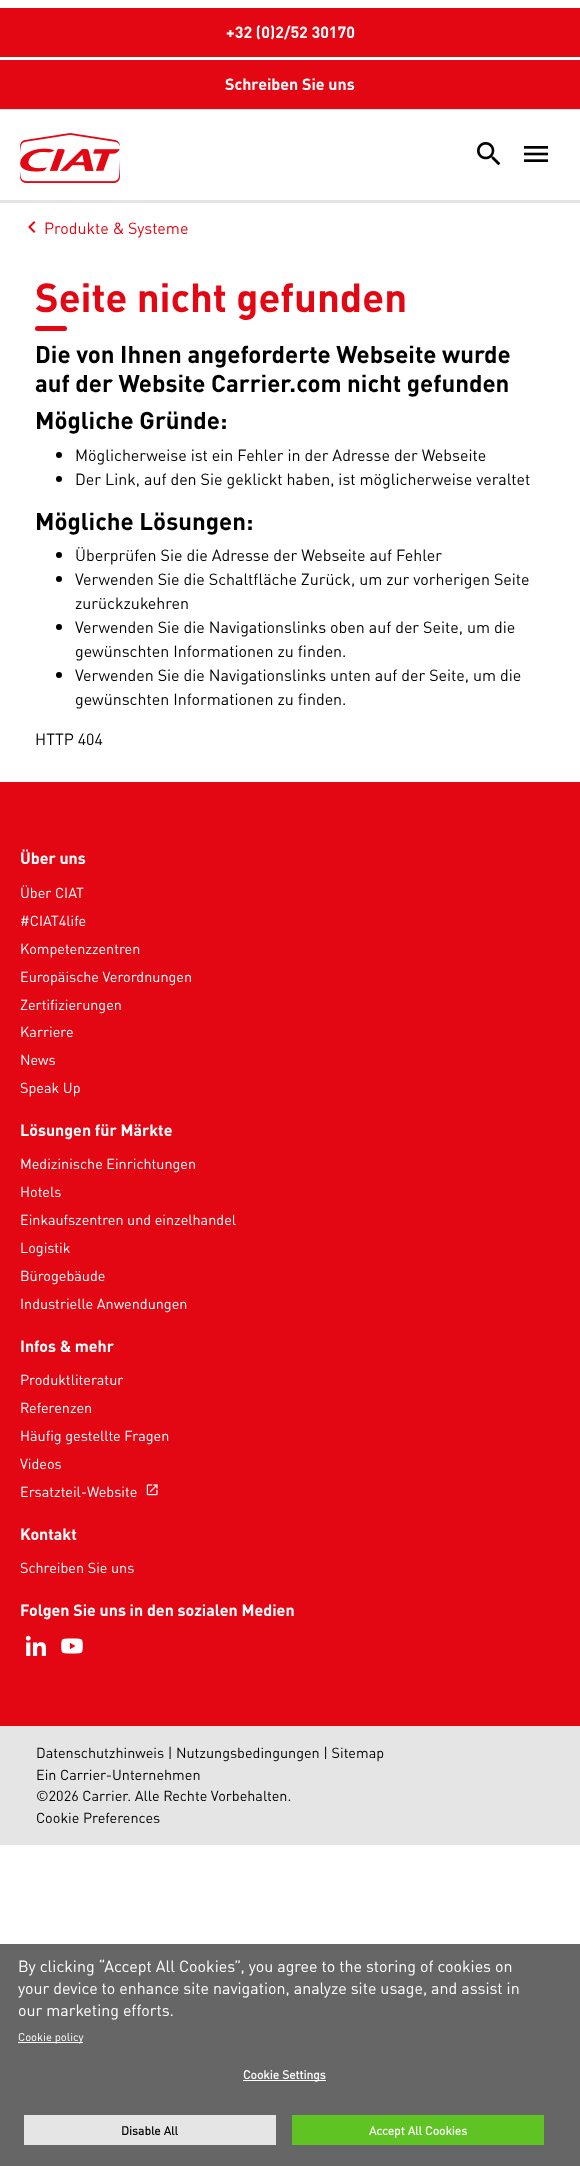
<!DOCTYPE html>
<meta charset="utf-8">
<style>body { margin: 0 } canvas { display: block }</style>
<canvas id="canvas" width="580" height="2166"></canvas>
<img id="img1" src="img_01.png" hidden>
<img id="img2" src="img_02.png" hidden>
<img id="img3" src="img_03.png" hidden>
<img id="img4" src="img_04.png" hidden>
<img id="img5" src="img_05.png" hidden>
<img id="img6" src="img_06.png" hidden>
<img id="img7" src="img_07.png" hidden>
<script>
window.onload = function () {
	const canvas = document.getElementById("canvas");
	const ctx = canvas.getContext("2d");
	ctx.miterLimit = 4;
	ctx.fontKerning = "normal";
	function txt(s, x, y) {
		ctx.fillText(s, x, y);
	}
	function fill(x, y, w, h) {
		ctx.fillRect(x, y, w, h);
	}
	function round(x, y, w, h, r) {
		ctx.beginPath();
		ctx.roundRect(x, y, w, h, r);
		ctx.fill();
	}
	function img(id, x, y, w, h) {
		ctx.drawImage(document.getElementById(id), x, y, w, h);
	}

	ctx.fillStyle = "#FFFFFF";
	fill(0, 0, 580, 2166);
	ctx.fillStyle = "#E5E5E6";
	fill(0, 200, 580, 3);
	fill(0, 109, 580, 1);
	ctx.fillStyle = "#E30613";
	fill(0, 8, 580, 49);
	fill(0, 60, 580, 49);
	img("img1", 20, 133, 100, 50);
	img("img2", 477, 142, 24, 24);
	img("img3", 524, 146, 24, 16);
	img("img4", 28, 221, 8, 12);
	round(35, 326, 32, 5, 2.5);
	ctx.fillStyle = "#000000";
	ctx.beginPath();
	ctx.arc(59, 455, 3, 0, Math.PI * 2);
	ctx.fill();
	ctx.beginPath();
	ctx.arc(59, 479, 3, 0, Math.PI * 2);
	ctx.fill();
	ctx.beginPath();
	ctx.arc(59, 555, 3, 0, Math.PI * 2);
	ctx.fill();
	ctx.beginPath();
	ctx.arc(59, 579, 3, 0, Math.PI * 2);
	ctx.fill();
	ctx.beginPath();
	ctx.arc(59, 627, 3, 0, Math.PI * 2);
	ctx.fill();
	ctx.beginPath();
	ctx.arc(59, 675, 3, 0, Math.PI * 2);
	ctx.fill();
	ctx.fillStyle = "#E5E5E6";
	fill(0, 1726, 580, 119);
	ctx.fillStyle = "#E30613";
	fill(0, 782, 580, 944);
	img("img5", 146, 1484, 12, 12);
	img("img6", 25, 1635, 21, 21);
	img("img7", 61, 1638, 22, 16);
	ctx.fillStyle = "#666666";
	fill(0, 1944, 580, 222);
	ctx.fillStyle = "#FFFFFF";
	fill(18, 2042, 65, 1);
	fill(243, 2080, 83, 1);
	ctx.fillStyle = "#E5E5E6";
	fill(24, 2115, 252, 30);
	ctx.fillStyle = "#5EC323";
	fill(292, 2115, 252, 30);
	ctx.font = "bold 16px DIN";
	ctx.fillStyle = "#FFFFFF";
	txt("+32 (0)2/52 30170", 226, 38);
	txt("Schreiben Sie uns", 225, 90);
	ctx.font = "16px DIN";
	ctx.fillStyle = "#E30613";
	txt("Produkte & Systeme", 44, 234);
	ctx.font = "bold 40px DIN";
	txt("Seite nicht gefunden", 35, 312);
	ctx.font = "bold 24px DIN";
	ctx.fillStyle = "#000000";
	txt("Die von Ihnen angeforderte Webseite wurde", 35, 363);
	txt("auf der Website Carrier.com nicht gefunden", 35, 392);
	txt("Mögliche Gründe:", 35, 429);
	ctx.font = "16px DIN";
	txt("Möglicherweise ist ein Fehler in der Adresse der Webseite", 75, 461);
	txt("Der Link, auf den Sie geklickt haben, ist möglicherweise veraltet", 75, 485);
	ctx.font = "bold 24px DIN";
	txt("Mögliche Lösungen:", 35, 530);
	ctx.font = "16px DIN";
	txt("Überprüfen Sie die Adresse der Webseite auf Fehler", 75, 561);
	txt("Verwenden Sie die Schaltfläche Zurück, um zur vorherigen Seite", 75, 585);
	txt("zurückzukehren", 75, 609);
	txt("Verwenden Sie die Navigationslinks oben auf der Seite, um die", 75, 633);
	txt("gewünschten Informationen zu finden.", 75, 657);
	txt("Verwenden Sie die Navigationslinks unten auf der Seite, um die", 75, 681);
	txt("gewünschten Informationen zu finden.", 75, 705);
	txt("HTTP 404", 35, 745);
	ctx.font = "bold 16px DIN";
	ctx.fillStyle = "#FFFFFF";
	txt("Über uns", 20, 864);
	ctx.font = "14.4px DIN";
	txt("Über CIAT", 20, 898);
	txt("#CIAT4life", 20, 926);
	txt("Kompetenzzentren", 20, 954);
	txt("Europäische Verordnungen", 20, 982);
	txt("Zertifizierungen", 20, 1010);
	txt("Karriere", 20, 1037);
	txt("News", 20, 1065);
	txt("Speak Up", 20, 1093);
	ctx.font = "bold 16px DIN";
	txt("Lösungen für Märkte", 20, 1136);
	ctx.font = "14.4px DIN";
	txt("Medizinische Einrichtungen", 20, 1169);
	txt("Hotels", 20, 1197);
	txt("Einkaufszentren und einzelhandel", 20, 1225);
	txt("Logistik", 20, 1253);
	txt("Bürogebäude", 20, 1281);
	txt("Industrielle Anwendungen", 20, 1309);
	ctx.font = "bold 16px DIN";
	txt("Infos & mehr", 20, 1352);
	ctx.font = "14.4px DIN";
	txt("Produktliteratur", 20, 1385);
	txt("Referenzen", 20, 1413);
	txt("Häufig gestellte Fragen", 20, 1441);
	txt("Videos", 20, 1469);
	txt("Ersatzteil-Website", 20, 1497);
	ctx.font = "bold 16px DIN";
	txt("Kontakt", 20, 1540);
	ctx.font = "14.4px DIN";
	txt("Schreiben Sie uns", 20, 1573);
	ctx.font = "bold 16px DIN";
	txt("Folgen Sie uns in den sozialen Medien", 20, 1616);
	ctx.font = "14.4px DIN";
	ctx.fillStyle = "#000000";
	txt("Datenschutzhinweis | Nutzungsbedingungen | Sitemap", 36, 1758);
	txt("Ein Carrier-Unternehmen", 36, 1780);
	txt("©2026 Carrier. Alle Rechte Vorbehalten.", 36, 1801);
	txt("Cookie Preferences", 36, 1823);
	ctx.font = "16px DIN";
	ctx.fillStyle = "#FFFFFF";
	txt("By clicking “Accept All Cookies”, you agree to the storing of cookies on", 18, 1972);
	txt("your device to enhance site navigation, analyze site usage, and assist in", 18, 1994);
	txt("our marketing efforts.", 18, 2016);
	ctx.font = "11.25px DIN";
	txt("Cookie policy", 18, 2041);
	ctx.font = "bold 12px 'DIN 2'";
	txt("Cookie Settings", 243, 2079);
	ctx.fillStyle = "#000000";
	txt("Disable All", 121, 2135);
	ctx.fillStyle = "#FFFFFF";
	txt("Accept All Cookies", 369, 2135);
};
</script>
